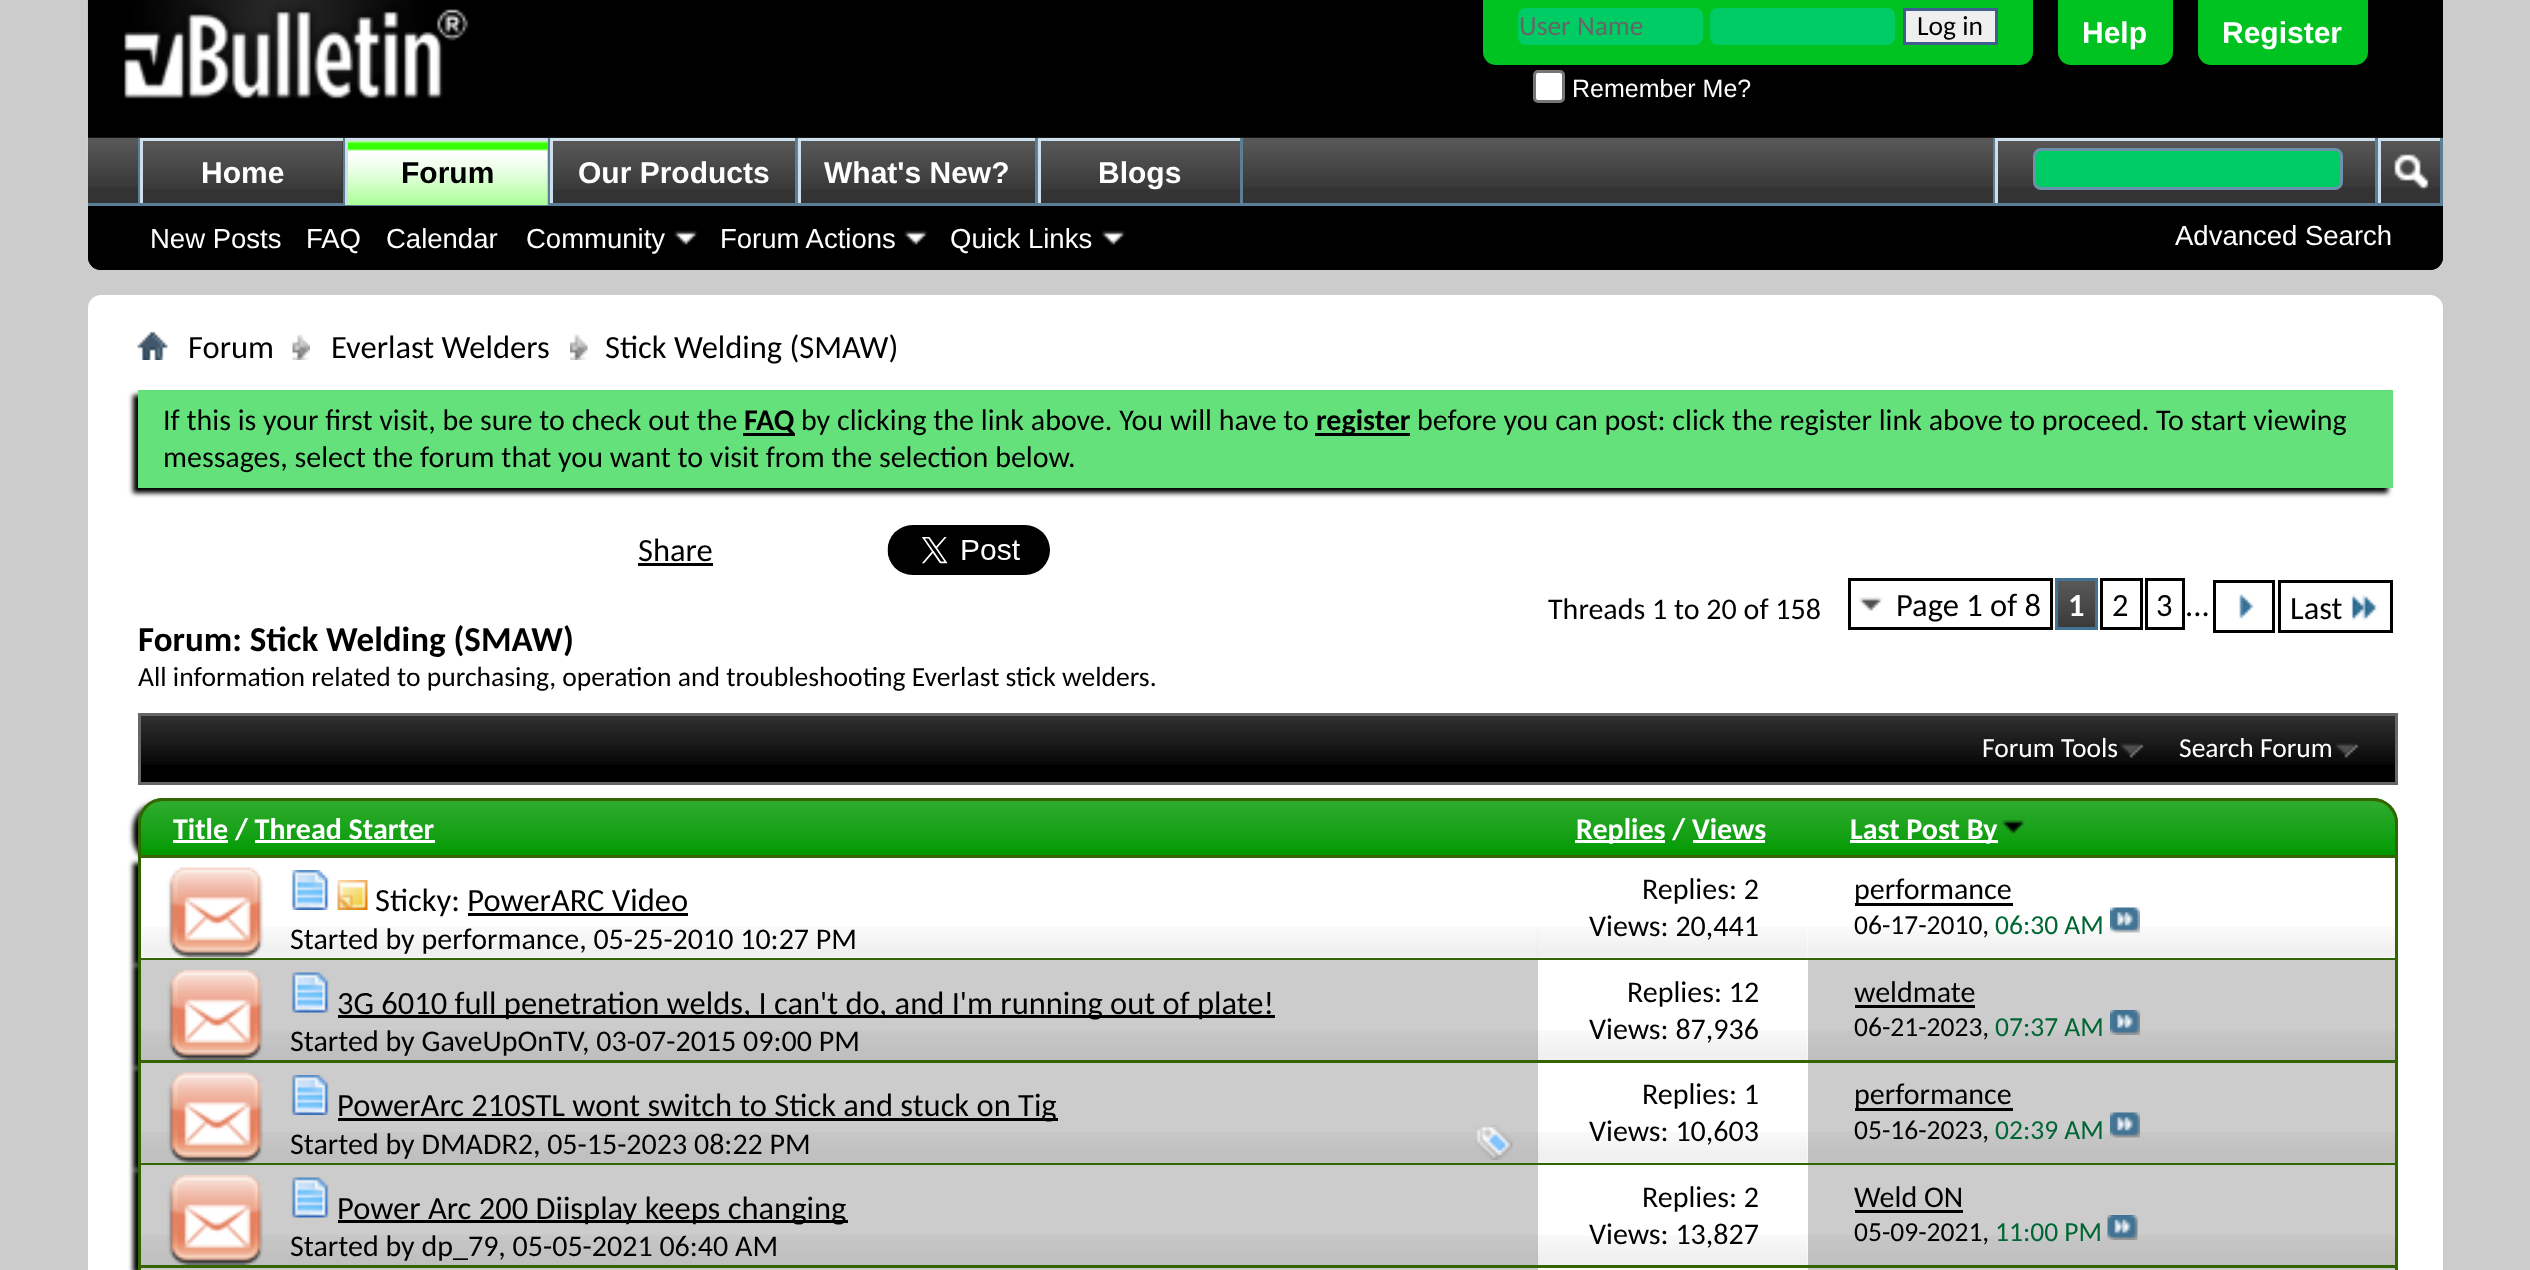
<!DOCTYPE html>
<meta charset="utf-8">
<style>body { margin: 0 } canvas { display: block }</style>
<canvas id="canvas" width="2530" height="1270"></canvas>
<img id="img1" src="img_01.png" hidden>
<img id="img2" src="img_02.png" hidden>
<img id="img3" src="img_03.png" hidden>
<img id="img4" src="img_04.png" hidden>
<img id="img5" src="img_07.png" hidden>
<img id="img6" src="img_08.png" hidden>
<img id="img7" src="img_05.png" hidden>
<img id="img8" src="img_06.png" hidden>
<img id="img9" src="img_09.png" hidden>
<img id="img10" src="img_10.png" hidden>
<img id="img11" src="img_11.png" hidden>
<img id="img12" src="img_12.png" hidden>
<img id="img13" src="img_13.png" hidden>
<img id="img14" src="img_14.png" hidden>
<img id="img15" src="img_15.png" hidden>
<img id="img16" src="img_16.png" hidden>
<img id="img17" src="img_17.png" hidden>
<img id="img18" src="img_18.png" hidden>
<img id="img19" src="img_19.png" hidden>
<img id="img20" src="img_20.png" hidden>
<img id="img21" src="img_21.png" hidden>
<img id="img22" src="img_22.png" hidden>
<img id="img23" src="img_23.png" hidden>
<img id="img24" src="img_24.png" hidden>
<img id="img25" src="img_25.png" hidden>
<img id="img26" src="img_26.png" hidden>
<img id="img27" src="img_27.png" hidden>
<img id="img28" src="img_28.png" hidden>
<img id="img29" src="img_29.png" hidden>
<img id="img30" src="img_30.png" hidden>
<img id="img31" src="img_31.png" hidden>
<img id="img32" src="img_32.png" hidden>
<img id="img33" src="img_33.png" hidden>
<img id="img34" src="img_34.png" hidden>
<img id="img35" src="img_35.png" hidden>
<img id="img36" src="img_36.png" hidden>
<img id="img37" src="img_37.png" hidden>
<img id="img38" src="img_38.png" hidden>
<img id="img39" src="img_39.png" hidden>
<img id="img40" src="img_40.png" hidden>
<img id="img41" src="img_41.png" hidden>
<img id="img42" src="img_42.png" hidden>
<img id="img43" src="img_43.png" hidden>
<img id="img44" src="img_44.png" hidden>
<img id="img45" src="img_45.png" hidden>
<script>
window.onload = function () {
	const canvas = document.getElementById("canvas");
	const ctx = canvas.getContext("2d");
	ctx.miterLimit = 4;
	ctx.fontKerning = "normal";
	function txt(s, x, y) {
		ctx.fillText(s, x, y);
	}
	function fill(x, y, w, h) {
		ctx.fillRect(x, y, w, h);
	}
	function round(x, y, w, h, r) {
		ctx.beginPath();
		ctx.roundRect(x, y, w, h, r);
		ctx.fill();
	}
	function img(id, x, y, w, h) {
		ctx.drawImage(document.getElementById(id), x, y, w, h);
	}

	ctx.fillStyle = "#CCCCCC";
	fill(0, 0, 2530, 1270);
	ctx.fillStyle = "#000000";
	ctx.beginPath();
	ctx.roundRect(88, 0, 2355, 270, [0, 0, 13, 13]);
	ctx.fill();
	img("img1", 87, 0, 1, 36);
	img("img2", 124, 0, 345, 99);
	ctx.fillStyle = "#00C322";
	ctx.beginPath();
	ctx.roundRect(1483, 0, 550, 65, [0, 0, 13, 13]);
	ctx.fill();
	ctx.fillStyle = "#00CC66";
	round(1518, 8, 185, 37, 8);
	round(1710, 8, 185, 37, 8);
	ctx.fillStyle = "#EFEFEF";
	ctx.beginPath();
	ctx.rect(1904.5, 9.5, 92, 34);
	ctx.fill();
	ctx.strokeStyle = "#415D8D";
	ctx.lineWidth = 3;
	ctx.stroke();
	ctx.fillStyle = "#FFFFFF";
	ctx.beginPath();
	ctx.roundRect(1534.5, 71.5, 29, 30, 3.5);
	ctx.fill();
	ctx.strokeStyle = "#767676";
	ctx.stroke();
	ctx.fillStyle = "#00C322";
	ctx.beginPath();
	ctx.roundRect(2058, 0, 115, 65, [0, 0, 13, 13]);
	ctx.fill();
	ctx.beginPath();
	ctx.roundRect(2198, 0, 170, 65, [0, 0, 13, 13]);
	ctx.fill();
	ctx.fillStyle = "#000000";
	ctx.beginPath();
	ctx.roundRect(88, 138, 2355, 132, [0, 0, 13, 13]);
	ctx.fill();
	ctx.fillStyle = "#333333";
	fill(88, 138, 2352, 65);
	img("img3", 87, 137, 2356, 51);
	ctx.fillStyle = "#5A7F97";
	fill(343, 138, 2, 67);
	fill(138, 138, 2, 67);
	ctx.fillStyle = "#333333";
	fill(143, 141, 200, 47);
	img("img4", 143, 141, 200, 49);
	ctx.fillStyle = "#CEDFEB";
	fill(140, 138, 203, 3);
	fill(140, 138, 3, 67);
	ctx.fillStyle = "#5A7F97";
	fill(548, 138, 2, 65);
	fill(795, 138, 3, 67);
	ctx.fillStyle = "#CEDFEB";
	fill(550, 138, 245, 3);
	fill(550, 138, 3, 67);
	ctx.fillStyle = "#5A7F97";
	fill(1035, 138, 3, 67);
	ctx.fillStyle = "#333333";
	fill(801, 141, 234, 47);
	img("img5", 797, 140, 238, 50);
	ctx.fillStyle = "#CEDFEB";
	fill(798, 138, 237, 3);
	fill(798, 138, 3, 67);
	ctx.fillStyle = "#5A7F97";
	fill(1240, 138, 3, 67);
	ctx.fillStyle = "#333333";
	fill(1041, 141, 199, 47);
	img("img6", 1037, 140, 203, 50);
	ctx.fillStyle = "#CEDFEB";
	fill(1038, 138, 202, 3);
	fill(1038, 138, 3, 67);
	ctx.fillStyle = "#5A7F97";
	fill(88, 203, 2355, 3);
	ctx.fillStyle = "#33FF00";
	fill(348, 141, 200, 64);
	img("img7", 348, 141, 200, 64);
	ctx.fillStyle = "#CEDFEB";
	fill(345, 138, 203, 3);
	fill(345, 138, 3, 67);
	ctx.fillStyle = "#333333";
	fill(553, 141, 242, 47);
	img("img8", 553, 141, 242, 49);
	img("img9", 674, 230, 24, 15);
	img("img9", 904, 230, 24, 15);
	img("img10", 1102, 230, 24, 15);
	ctx.fillStyle = "#5A7F97";
	fill(1993, 138, 2, 65);
	ctx.fillStyle = "#CEDFEB";
	fill(1995, 138, 380, 3);
	fill(1995, 138, 3, 65);
	ctx.fillStyle = "#00CC66";
	ctx.beginPath();
	ctx.roundRect(2034.5, 149.5, 307, 39, 6.5);
	ctx.fill();
	ctx.strokeStyle = "#6B91AB";
	ctx.stroke();
	ctx.fillStyle = "#5A7F97";
	fill(2440, 138, 3, 65);
	fill(2375, 138, 3, 65);
	ctx.fillStyle = "#CEDFEB";
	fill(2378, 138, 62, 3);
	fill(2378, 138, 3, 65);
	img("img11", 2394, 154, 35, 37);
	ctx.fillStyle = "#FFFFFF";
	round(88, 295, 2355, 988, 13);
	img("img12", 137, 331, 31, 29);
	img("img13", 292, 334, 18, 26);
	img("img14", 570, 334, 18, 26);
	ctx.fillStyle = "#000000";
	ctx.filter = "blur(2.5px)";
	ctx.beginPath();
	ctx.rect(133, 395, 2255, 98);
	ctx.fill();
	ctx.filter = "none";
	ctx.fillStyle = "#65E17B";
	fill(138, 390, 2255, 98);
	ctx.fillStyle = "#000000";
	fill(743, 433, 52, 3);
	fill(1315, 433, 95, 3);
	fill(638, 563, 75, 3);
	img("img15", 887, 525, 163, 50);
	img("img16", 1859, 597, 24, 14);
	ctx.strokeStyle = "#000000";
	ctx.strokeRect(1849.5, 579.5, 202, 49);
	ctx.fillStyle = "#333333";
	fill(2058, 581, 37, 46);
	img("img17", 2058, 581, 37, 46);
	ctx.strokeStyle = "#417394";
	ctx.strokeRect(2056.5, 579.5, 40, 49);
	ctx.strokeStyle = "#000000";
	ctx.strokeRect(2101.5, 579.5, 40, 49);
	ctx.strokeRect(2146.5, 579.5, 37, 49);
	ctx.strokeRect(2214.5, 581.5, 59, 50);
	img("img18", 2239, 594, 15, 25);
	ctx.fillStyle = "#000000";
	fill(2278, 580, 115, 3);
	fill(2278, 630, 65, 3);
	fill(2278, 580, 3, 53);
	fill(2390, 580, 3, 53);
	fill(2343, 630, 50, 3);
	img("img19", 2351, 594, 27, 27);
	fill(141, 716, 2254, 66);
	img("img20", 141, 716, 2254, 49);
	ctx.strokeStyle = "#666666";
	ctx.strokeRect(139.5, 714.5, 2257, 69);
	img("img21", 2120, 743, 24, 15);
	img("img22", 2335, 743, 24, 15);
	ctx.filter = "blur(2.5px)";
	ctx.beginPath();
	ctx.roundRect(133, 803, 2260, 60, 25);
	ctx.fill();
	ctx.filter = "none";
	ctx.fillStyle = "#009900";
	ctx.beginPath();
	ctx.roundRect(138, 798, 2260, 60, [25, 25, 0, 0]);
	ctx.fill();
	img("img23", 138, 800, 2260, 50);
	ctx.beginPath();
	ctx.roundRect(139.5, 799.5, 2257, 57, [23.5, 23.5, 0, 0]);
	ctx.strokeStyle = "#336600";
	ctx.stroke();
	ctx.fillStyle = "#FFFFFF";
	fill(173, 840, 55, 3);
	fill(255, 840, 180, 3);
	fill(1575, 840, 90, 3);
	fill(1693, 840, 72, 3);
	fill(1850, 840, 148, 3);
	img("img24", 2002, 820, 23, 14);
	ctx.fillStyle = "#000000";
	ctx.filter = "blur(2.5px)";
	ctx.beginPath();
	ctx.rect(133, 863, 2255, 102);
	ctx.fill();
	ctx.filter = "none";
	ctx.fillStyle = "#FFFFFF";
	fill(141, 858, 2253, 100);
	img("img25", 137, 927, 2258, 31);
	ctx.fillStyle = "#336600";
	fill(2395, 858, 3, 102);
	fill(138, 958, 2260, 2);
	fill(138, 858, 3, 102);
	img("img26", 167, 867, 97, 91);
	img("img27", 291, 870, 38, 40);
	img("img28", 337, 880, 31, 30);
	ctx.fillStyle = "#000000";
	fill(468, 913, 220, 3);
	ctx.fillStyle = "#FFFFFF";
	fill(1538, 927, 270, 31);
	img("img29", 1537, 927, 271, 31);
	ctx.fillStyle = "#000000";
	fill(1855, 903, 158, 3);
	img("img30", 2110, 907, 30, 26);
	ctx.filter = "blur(2.5px)";
	ctx.beginPath();
	ctx.rect(133, 965, 2255, 103);
	ctx.fill();
	ctx.filter = "none";
	ctx.fillStyle = "#CCCCCC";
	fill(141, 960, 2254, 100);
	img("img31", 137, 1030, 2258, 30);
	ctx.fillStyle = "#336600";
	fill(2395, 960, 3, 103);
	fill(138, 1060, 2260, 3);
	fill(138, 960, 3, 103);
	img("img32", 167, 970, 96, 90);
	img("img33", 291, 972, 38, 41);
	ctx.fillStyle = "#000000";
	fill(338, 1015, 937, 3);
	ctx.fillStyle = "#FFFFFF";
	fill(1538, 960, 270, 100);
	img("img34", 1537, 1030, 271, 30);
	ctx.fillStyle = "#000000";
	fill(1855, 1005, 120, 3);
	img("img35", 2110, 1010, 30, 25);
	ctx.filter = "blur(2.5px)";
	ctx.beginPath();
	ctx.rect(133, 1068, 2255, 102);
	ctx.fill();
	ctx.filter = "none";
	ctx.fillStyle = "#CCCCCC";
	fill(141, 1063, 2254, 100);
	img("img36", 137, 1132, 2258, 31);
	ctx.fillStyle = "#336600";
	fill(2395, 1063, 3, 102);
	fill(138, 1163, 2260, 2);
	fill(138, 1063, 3, 102);
	img("img37", 167, 1072, 96, 91);
	img("img38", 291, 1075, 38, 40);
	ctx.fillStyle = "#000000";
	fill(338, 1118, 720, 3);
	img("img39", 1475, 1125, 38, 35);
	ctx.fillStyle = "#FFFFFF";
	fill(1538, 1063, 270, 100);
	img("img40", 1537, 1132, 271, 31);
	ctx.fillStyle = "#000000";
	fill(1855, 1108, 158, 3);
	img("img41", 2110, 1112, 30, 26);
	ctx.filter = "blur(2.5px)";
	ctx.beginPath();
	ctx.rect(133, 1170, 2255, 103);
	ctx.fill();
	ctx.filter = "none";
	ctx.fillStyle = "#CCCCCC";
	fill(141, 1165, 2254, 100);
	img("img42", 137, 1235, 2258, 30);
	ctx.fillStyle = "#336600";
	fill(2395, 1165, 3, 103);
	fill(138, 1265, 2260, 3);
	fill(138, 1165, 3, 103);
	img("img43", 167, 1175, 96, 90);
	img("img33", 291, 1177, 38, 41);
	ctx.fillStyle = "#000000";
	fill(338, 1220, 510, 3);
	ctx.fillStyle = "#FFFFFF";
	fill(1538, 1165, 270, 100);
	img("img44", 1537, 1235, 271, 30);
	ctx.fillStyle = "#000000";
	fill(1855, 1210, 108, 3);
	img("img45", 2107, 1215, 31, 25);
	ctx.fillStyle = "#CCCCCC";
	fill(138, 1268, 2260, 2);
	ctx.fillStyle = "#336600";
	fill(2395, 1268, 3, 2);
	fill(138, 1268, 3, 2);
	ctx.fillStyle = "#FFFFFF";
	fill(1538, 1268, 270, 2);
	ctx.font = "27.5px Carlito";
	ctx.fillStyle = "#666666";
	txt("User Name", 1519, 35);
	ctx.fillStyle = "#000000";
	txt("Log in", 1917, 35);
	ctx.font = "25px Liberation Sans";
	ctx.fillStyle = "#FFFFFF";
	txt("Remember Me?", 1572, 97);
	ctx.font = "bold 30px Liberation Sans";
	txt("Help", 2082, 43);
	txt("Register", 2222, 43);
	txt("Home", 201, 183);
	ctx.fillStyle = "#000000";
	txt("Forum", 401, 183);
	ctx.fillStyle = "#FFFFFF";
	txt("Our Products", 578, 183);
	txt("What's New?", 824, 183);
	txt("Blogs", 1098, 183);
	ctx.font = "27.5px Liberation Sans";
	txt("New Posts", 150, 248);
	txt("FAQ", 306, 248);
	txt("Calendar", 386, 248);
	txt("Community", 526, 248);
	txt("Forum Actions", 720, 248);
	txt("Quick Links", 950, 248);
	txt("Advanced Search", 2175, 245);
	ctx.font = "32.5px Carlito";
	ctx.fillStyle = "#000000";
	txt("Forum", 188, 358);
	txt("Everlast Welders", 331, 358);
	txt("Stick Welding (SMAW)", 605, 358);
	ctx.font = "30px Carlito";
	txt("If this is your first visit, be sure to check out the", 163, 430);
	ctx.font = "bold 30px Carlito";
	txt("FAQ", 744, 430);
	ctx.font = "30px Carlito";
	txt("by clicking the link above. You will have to", 801, 430);
	ctx.font = "bold 30px Carlito";
	txt("register", 1316, 430);
	ctx.font = "30px Carlito";
	txt("before you can post: click the register link above to proceed. To start viewing", 1417, 430);
	txt("messages, select the forum that you want to visit from the selection below.", 163, 467);
	ctx.font = "32.5px Carlito";
	txt("Share", 638, 561);
	ctx.font = "30px Carlito";
	txt("Threads 1 to 20 of 158", 1548, 619);
	ctx.font = "32.5px Carlito";
	txt("Page 1 of 8", 1896, 616);
	ctx.font = "bold 32.5px Carlito";
	ctx.fillStyle = "#FFFFFF";
	txt("1", 2068, 616);
	ctx.font = "32.5px Carlito";
	ctx.fillStyle = "#000000";
	txt("2", 2112, 616);
	txt("3", 2156, 616);
	txt("...", 2185, 616);
	txt("Last", 2290, 619);
	ctx.font = "bold 35px Carlito";
	txt("Forum: Stick Welding (SMAW)", 138, 651);
	ctx.font = "27.6px Carlito";
	txt("All information related to purchasing, operation and troubleshooting Everlast stick welders.", 138, 686);
	ctx.font = "27.5px Carlito";
	ctx.fillStyle = "#FFFFFF";
	txt("Forum Tools", 1982, 757);
	txt("Search Forum", 2179, 757);
	ctx.font = "bold 30px Carlito";
	txt("Title / Thread Starter", 173, 839);
	txt("Replies / Views", 1576, 839);
	txt("Last Post By", 1850, 839);
	ctx.font = "32.5px Carlito";
	ctx.fillStyle = "#000000";
	txt("Sticky: PowerARC Video", 375, 911);
	ctx.font = "30px Carlito";
	txt("Started by performance, 05-25-2010 10:27 PM", 290, 949);
	txt("Replies: 2", 1642, 899);
	txt("Views: 20,441", 1589, 936);
	txt("performance", 1854, 899);
	ctx.font = "27.5px Carlito";
	txt("06-17-2010,", 1854, 934);
	ctx.fillStyle = "#006633";
	txt("06:30 AM", 1995, 934);
	ctx.font = "32.5px Carlito";
	ctx.fillStyle = "#000000";
	txt("3G 6010 full penetration welds, I can't do, and I'm running out of plate!", 337, 1014);
	ctx.font = "30px Carlito";
	txt("Started by GaveUpOnTV", 290, 1051);
	txt(", 03-07-2015 09:00 PM", 582, 1051);
	txt("Replies: 12", 1627, 1002);
	txt("Views: 87,936", 1589, 1039);
	txt("weldmate", 1854, 1002);
	ctx.font = "27.5px Carlito";
	txt("06-21-2023,", 1854, 1036);
	ctx.fillStyle = "#006633";
	txt("07:37 AM", 1995, 1036);
	ctx.font = "32.5px Carlito";
	ctx.fillStyle = "#000000";
	txt("PowerArc 210STL wont switch to Stick and stuck on Tig", 337, 1116);
	ctx.font = "30px Carlito";
	txt("Started by DMADR2, 05-15-2023 08:22 PM", 290, 1154);
	txt("Replies: 1", 1642, 1104);
	txt("Views: 10,603", 1589, 1141);
	txt("performance", 1854, 1104);
	ctx.font = "27.5px Carlito";
	txt("05-16-2023,", 1854, 1139);
	ctx.fillStyle = "#006633";
	txt("02:39 AM", 1995, 1139);
	ctx.font = "32.5px Carlito";
	ctx.fillStyle = "#000000";
	txt("Power Arc 200 Diisplay keeps changing", 337, 1219);
	ctx.font = "30px Carlito";
	txt("Started by dp_79, 05-05-2021 06:40 AM", 290, 1256);
	txt("Replies: 2", 1642, 1207);
	txt("Views: 13,827", 1589, 1244);
	txt("Weld ON", 1854, 1207);
	ctx.font = "27.5px Carlito";
	txt("05-09-2021,", 1854, 1241);
	ctx.fillStyle = "#006633";
	txt("11:00 PM", 1995, 1241);
};
</script>
